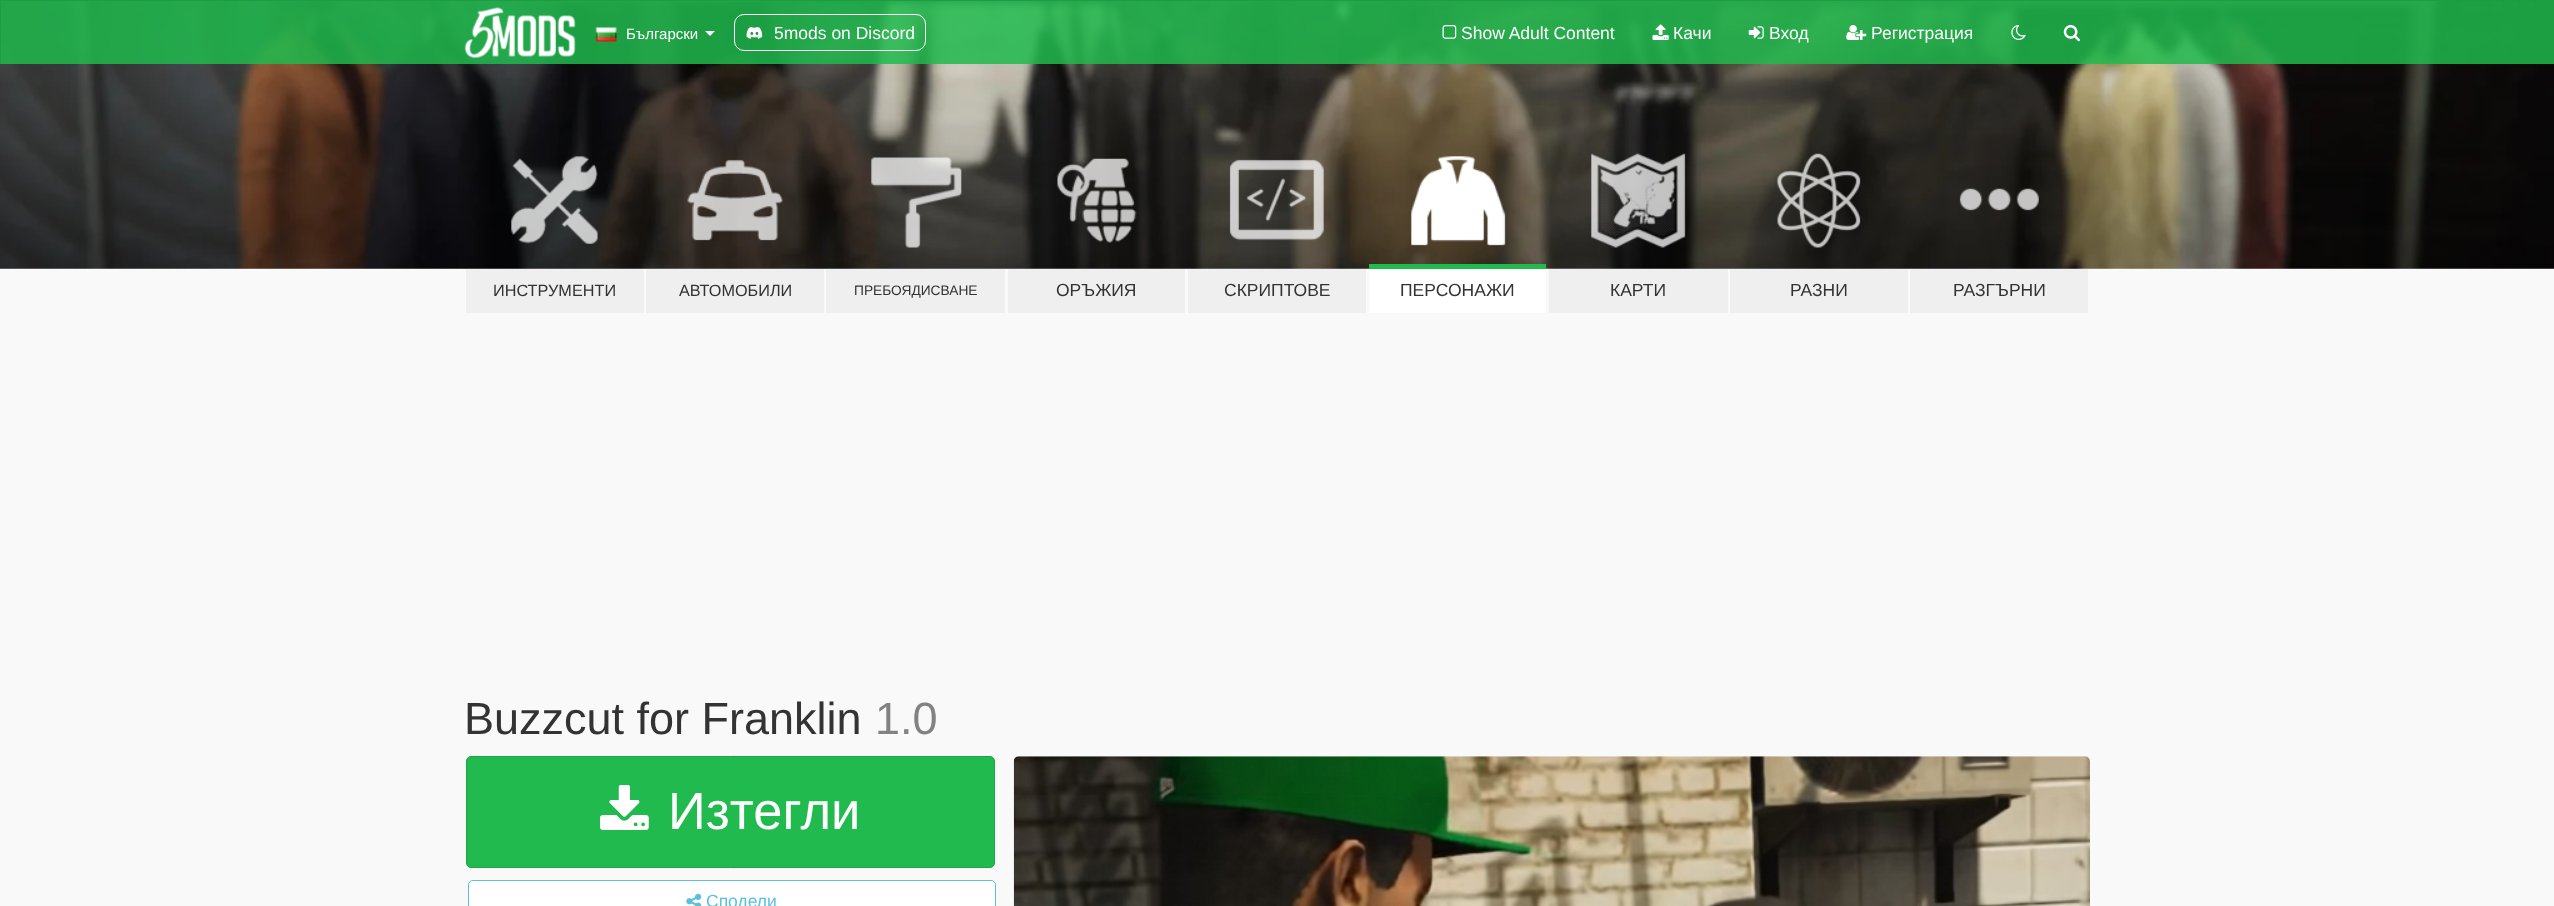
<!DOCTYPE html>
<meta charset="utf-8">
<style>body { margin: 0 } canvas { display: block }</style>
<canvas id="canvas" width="2554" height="906"></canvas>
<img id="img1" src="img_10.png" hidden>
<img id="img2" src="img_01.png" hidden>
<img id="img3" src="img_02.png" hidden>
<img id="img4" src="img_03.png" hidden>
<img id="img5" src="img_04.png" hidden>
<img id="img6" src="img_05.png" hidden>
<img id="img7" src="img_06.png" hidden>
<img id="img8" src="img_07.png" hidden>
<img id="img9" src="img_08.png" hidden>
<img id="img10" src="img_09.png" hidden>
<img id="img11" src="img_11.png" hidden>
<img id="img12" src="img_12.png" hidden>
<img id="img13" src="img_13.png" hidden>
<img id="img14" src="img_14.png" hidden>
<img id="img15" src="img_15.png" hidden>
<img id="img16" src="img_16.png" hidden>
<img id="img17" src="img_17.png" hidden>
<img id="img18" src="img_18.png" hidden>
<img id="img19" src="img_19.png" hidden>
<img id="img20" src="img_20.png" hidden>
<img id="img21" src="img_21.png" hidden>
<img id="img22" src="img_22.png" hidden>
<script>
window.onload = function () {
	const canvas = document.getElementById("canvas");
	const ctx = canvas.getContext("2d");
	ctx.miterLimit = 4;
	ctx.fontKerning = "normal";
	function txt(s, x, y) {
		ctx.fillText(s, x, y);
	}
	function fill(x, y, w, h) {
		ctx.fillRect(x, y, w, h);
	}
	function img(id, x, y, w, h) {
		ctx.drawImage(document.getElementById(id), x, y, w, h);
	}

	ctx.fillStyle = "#F9F9F9";
	fill(0, 0, 2554, 906);
	img("img1", 0, 1, 2554, 268);
	ctx.fillStyle = "rgba(32, 186, 78, 0.85)";
	fill(1, 1, 2553, 63);
	ctx.fillStyle = "#1B9E42";
	fill(0, 0, 2554, 1);
	fill(0, 0, 1, 64);
	img("img2", 464, 7, 112, 51);
	img("img3", 595, 27, 22, 15);
	ctx.fillStyle = "#FFFFFF";
	ctx.beginPath();
	ctx.moveTo(705, 31);
	ctx.lineTo(715, 31);
	ctx.lineTo(710, 36);
	ctx.closePath();
	ctx.fill();
	ctx.beginPath();
	ctx.roundRect(734.5, 14.5, 191, 36, 9.5);
	ctx.strokeStyle = "#FFFFFF";
	ctx.stroke();
	img("img4", 746, 26, 17, 13);
	img("img5", 1442, 25, 15, 14);
	img("img6", 1652, 24, 17, 16);
	img("img7", 1748, 26, 16, 13);
	img("img8", 1846, 25, 21, 15);
	img("img9", 2011, 25, 15, 15);
	img("img10", 2063, 25, 17, 17);
	img("img11", 511, 156, 87, 88);
	ctx.fillStyle = "#EFEFEF";
	fill(466, 269, 178, 44);
	img("img12", 687, 159, 96, 82);
	fill(646, 269, 178, 44);
	img("img13", 871, 157, 91, 91);
	fill(826, 269, 179, 44);
	img("img14", 1057, 158, 80, 85);
	fill(1008, 269, 177, 44);
	img("img15", 1229, 159, 95, 82);
	fill(1188, 269, 178, 44);
	img("img16", 1411, 156, 95, 90);
	ctx.fillStyle = "#20BA4E";
	fill(1369, 264, 177, 5);
	ctx.fillStyle = "#FFFFFF";
	fill(1369, 269, 177, 44);
	img("img17", 1591, 153, 95, 95);
	ctx.fillStyle = "#EFEFEF";
	fill(1549, 269, 179, 44);
	img("img18", 1777, 153, 84, 95);
	fill(1730, 269, 178, 44);
	img("img19", 1959, 188, 80, 23);
	fill(1910, 269, 178, 44);
	ctx.fillStyle = "#20BA4E";
	ctx.beginPath();
	ctx.roundRect(466.5, 756.5, 528, 111, 4.5);
	ctx.fill();
	ctx.strokeStyle = "#1CA445";
	ctx.stroke();
	img("img20", 600, 785, 49, 45);
	ctx.fillStyle = "#FFFFFF";
	ctx.beginPath();
	ctx.roundRect(468.5, 880.5, 527, 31, 4.5);
	ctx.fill();
	ctx.strokeStyle = "#5BC0DE";
	ctx.stroke();
	img("img21", 686, 893, 16, 13);
	img("img22", 1013, 756, 1077, 150);
	ctx.font = "15px Liberation Sans";
	txt("Български", 626, 39);
	ctx.font = "17.5px Liberation Sans";
	txt("5mods on Discord", 774, 39);
	txt("Show Adult Content", 1461, 39);
	txt("Качи", 1673, 39);
	txt("Вход", 1769, 39);
	txt("Регистрация", 1871, 39);
	ctx.font = "16.25px Liberation Sans";
	ctx.fillStyle = "#333333";
	txt("ИНСТРУМЕНТИ", 493, 296);
	txt("АВТОМОБИЛИ", 679, 296);
	ctx.font = "13.75px Liberation Sans";
	txt("ПРЕБОЯДИСВАНЕ", 854, 295);
	ctx.font = "17.5px Liberation Sans";
	txt("ОРЪЖИЯ", 1056, 296);
	txt("СКРИПТОВЕ", 1224, 296);
	txt("ПЕРСОНАЖИ", 1400, 296);
	txt("КАРТИ", 1610, 296);
	txt("РАЗНИ", 1790, 296);
	txt("РАЗГЪРНИ", 1953, 296);
	ctx.font = "45px Liberation Sans";
	txt("Buzzcut for Franklin", 464, 734);
	ctx.fillStyle = "#828282";
	txt("1.0", 875, 734);
	ctx.font = "52.5px Liberation Sans";
	ctx.fillStyle = "#FFFFFF";
	txt("Изтегли", 668, 829);
	ctx.font = "17.5px Liberation Sans";
	ctx.fillStyle = "#5BC0DE";
	txt("Сподели", 706, 907);
};
</script>
